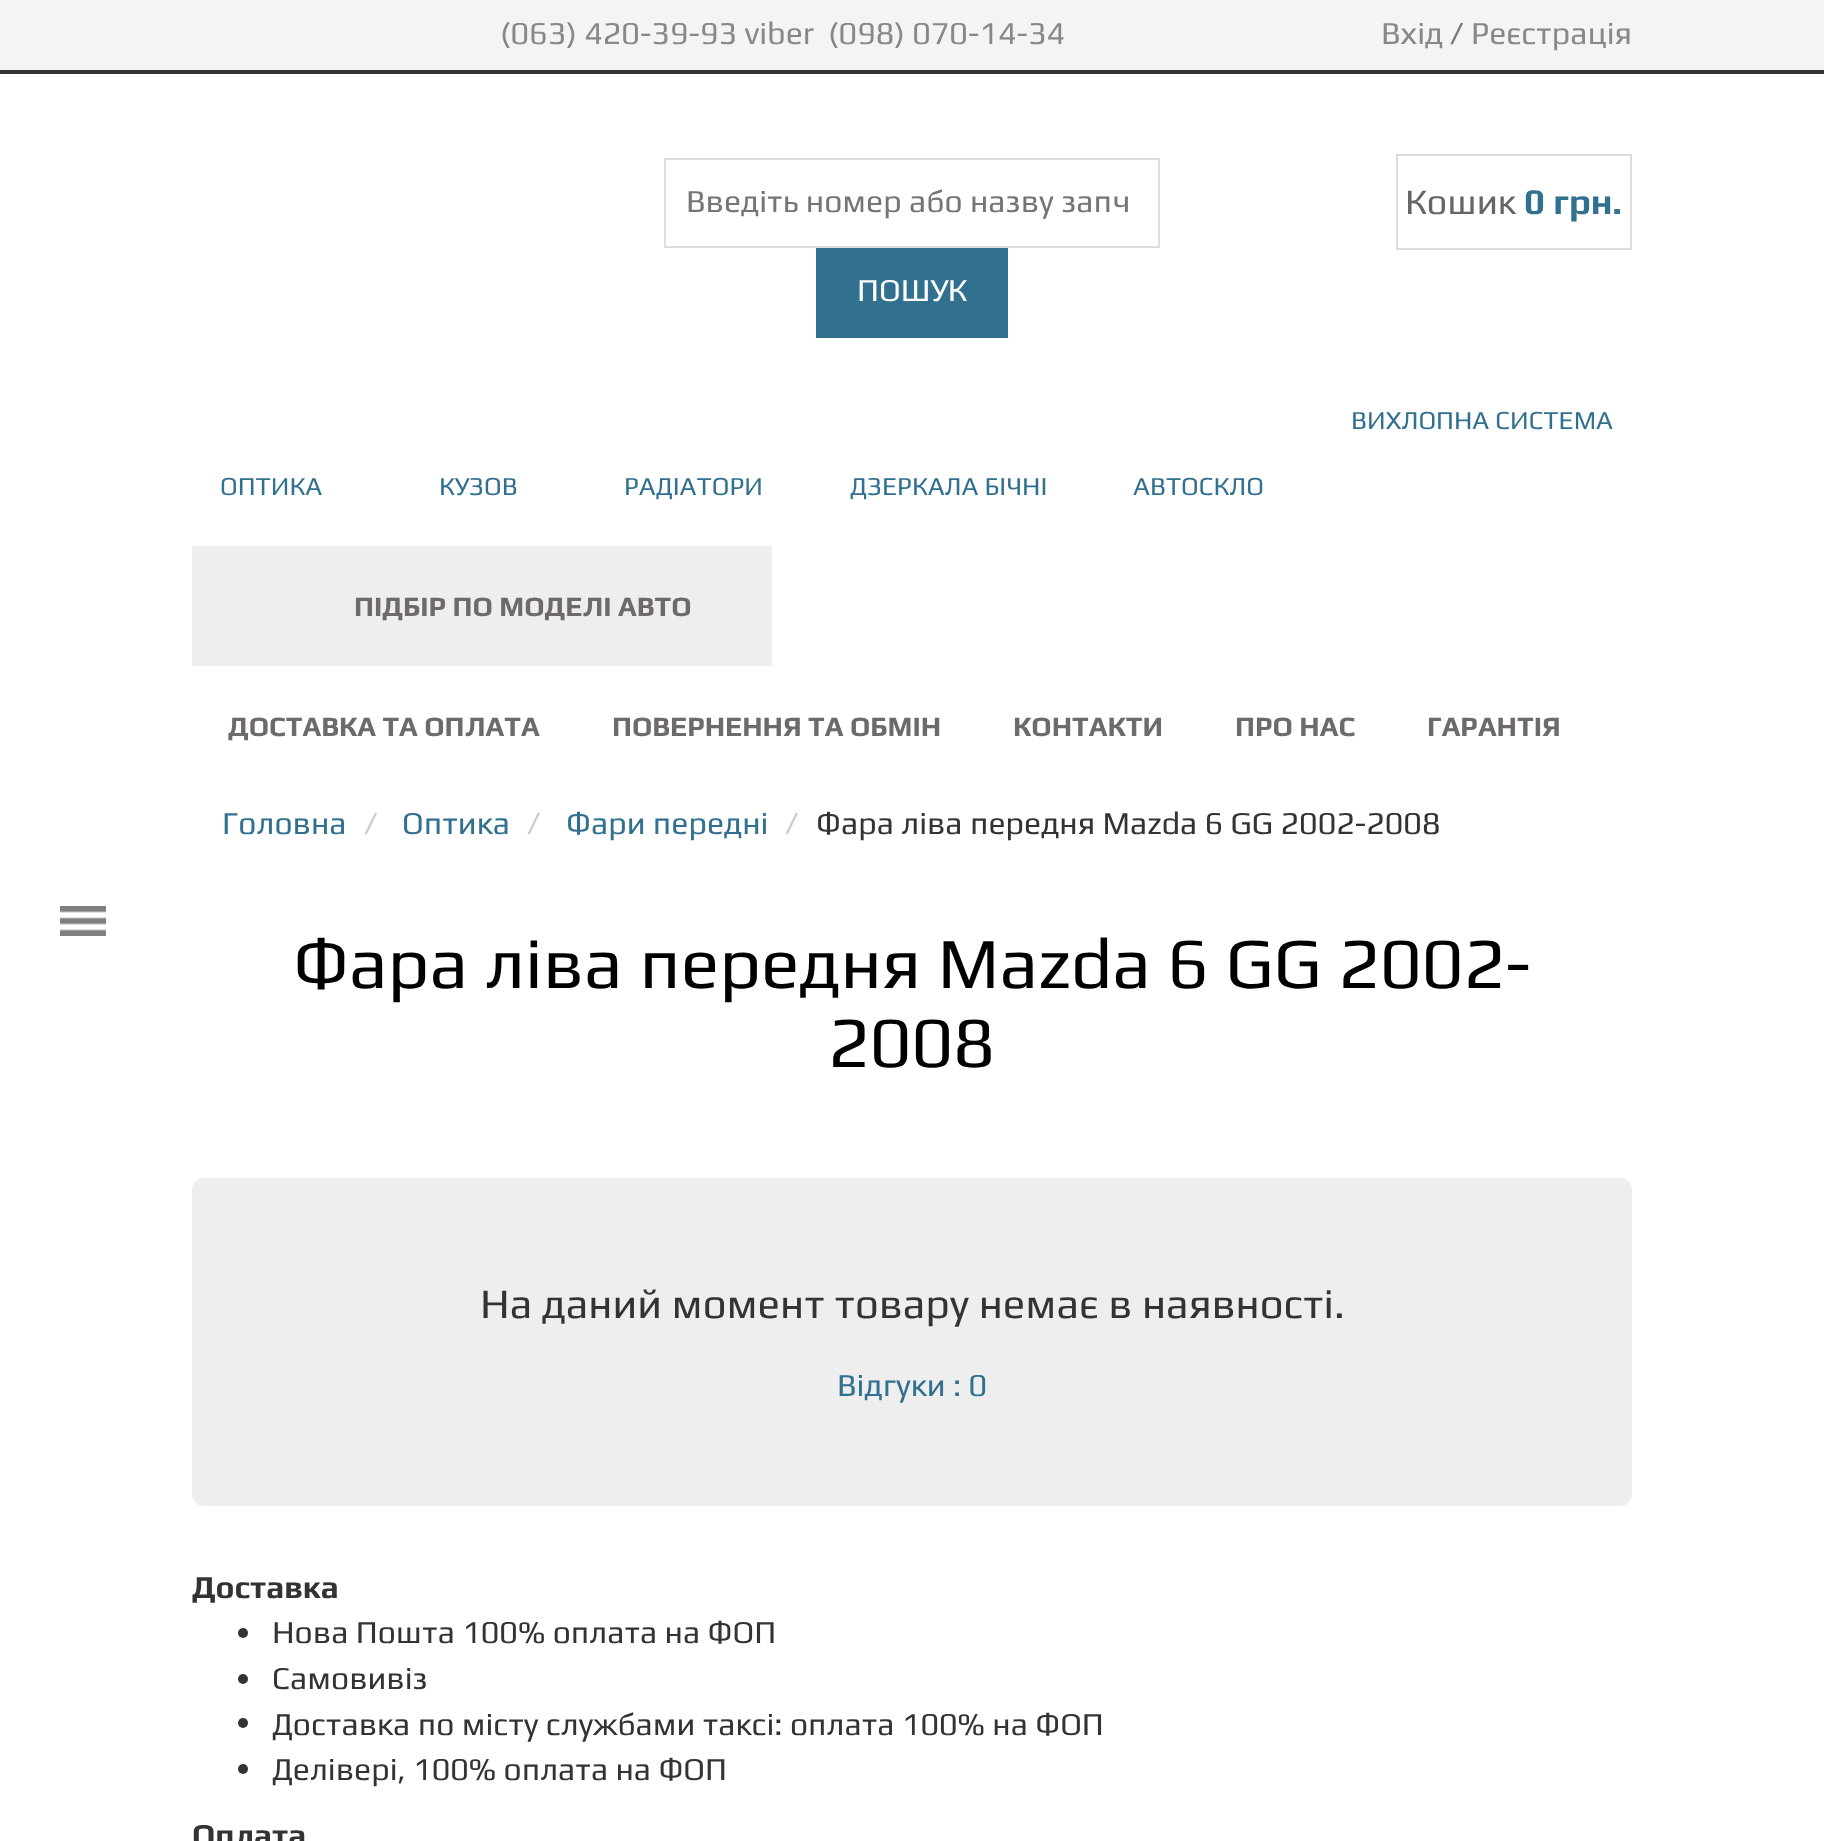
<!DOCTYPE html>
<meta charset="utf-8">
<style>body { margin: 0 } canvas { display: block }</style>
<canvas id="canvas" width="1824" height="1841"></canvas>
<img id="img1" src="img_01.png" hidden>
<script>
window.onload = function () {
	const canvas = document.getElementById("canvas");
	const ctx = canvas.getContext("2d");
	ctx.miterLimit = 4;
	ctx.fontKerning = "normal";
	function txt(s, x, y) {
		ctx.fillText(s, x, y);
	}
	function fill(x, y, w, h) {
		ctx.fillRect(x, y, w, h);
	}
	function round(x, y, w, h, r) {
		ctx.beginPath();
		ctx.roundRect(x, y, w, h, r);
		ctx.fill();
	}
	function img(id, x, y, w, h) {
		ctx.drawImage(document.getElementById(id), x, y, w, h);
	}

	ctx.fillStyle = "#FFFFFF";
	fill(0, 0, 1824, 1841);
	ctx.fillStyle = "#F4F4F4";
	fill(0, 0, 1824, 70);
	ctx.fillStyle = "#333333";
	fill(0, 70, 1824, 4);
	ctx.strokeStyle = "#DDDDDD";
	ctx.lineWidth = 2;
	ctx.strokeRect(665, 159, 494, 88);
	ctx.fillStyle = "#31708F";
	fill(816, 248, 192, 90);
	ctx.strokeRect(1397, 155, 234, 94);
	ctx.fillStyle = "#EEEEEE";
	fill(192, 546, 580, 120);
	img("img1", 60, 906, 46, 30);
	round(192, 1178, 1440, 328, 12);
	ctx.fillStyle = "#333333";
	ctx.beginPath();
	ctx.arc(243, 1633, 5, 0, Math.PI * 2);
	ctx.fill();
	ctx.beginPath();
	ctx.arc(243, 1679, 5, 0, Math.PI * 2);
	ctx.fill();
	ctx.beginPath();
	ctx.arc(243, 1723, 5, 0, Math.PI * 2);
	ctx.fill();
	ctx.beginPath();
	ctx.arc(243, 1769, 5, 0, Math.PI * 2);
	ctx.fill();
	ctx.font = "32px Play";
	ctx.fillStyle = "#888888";
	txt("(063) 420-39-93 viber", 500, 44);
	txt("(098) 070-14-34", 828, 44);
	txt("Вхід", 1381, 44);
	ctx.fillStyle = "#72767F";
	txt("/", 1450, 44);
	ctx.fillStyle = "#888888";
	txt("Реєстрація", 1471, 44);
	ctx.fillStyle = "#757575";
	txt("Введіть номер або назву запч", 686, 212);
	ctx.fillStyle = "#FFFFFF";
	txt("ПОШУК", 857, 301);
	ctx.font = "36px Play";
	ctx.fillStyle = "#666666";
	txt("Кошик", 1405, 214);
	ctx.font = "bold 36px Play";
	ctx.fillStyle = "#31708F";
	txt("0 грн.", 1524, 214);
	ctx.font = "26px Play";
	txt("ВИХЛОПНА СИСТЕМА", 1351, 429);
	txt("ОПТИКА", 220, 495);
	txt("КУЗОВ", 439, 495);
	txt("РАДІАТОРИ", 624, 495);
	txt("ДЗЕРКАЛА БІЧНІ", 850, 495);
	txt("АВТОСКЛО", 1133, 495);
	ctx.font = "bold 28px Play";
	ctx.fillStyle = "#6E6A6A";
	txt("ПІДБІР ПО МОДЕЛІ АВТО", 354, 616);
	txt("ДОСТАВКА ТА ОПЛАТА", 228, 736);
	txt("ПОВЕРНЕННЯ ТА ОБМІН", 612, 736);
	txt("КОНТАКТИ", 1013, 736);
	txt("ПРО НАС", 1235, 736);
	txt("ГАРАНТІЯ", 1427, 736);
	ctx.font = "32px Play";
	ctx.fillStyle = "#31708F";
	txt("Головна", 222, 834);
	ctx.fillStyle = "#CCCCCC";
	txt("/", 364, 834);
	ctx.fillStyle = "#31708F";
	txt("Оптика", 402, 834);
	ctx.fillStyle = "#CCCCCC";
	txt("/", 527, 834);
	ctx.fillStyle = "#31708F";
	txt("Фари передні", 566, 834);
	ctx.fillStyle = "#CCCCCC";
	txt("/", 785, 834);
	ctx.fillStyle = "#333333";
	txt("Фара ліва передня Mazda 6 GG 2002-2008", 816, 834);
	ctx.font = "72px Play";
	ctx.fillStyle = "#000000";
	txt("Фара ліва передня Mazda 6 GG 2002-", 293, 988);
	txt("2008", 828, 1067);
	ctx.font = "42px Play";
	ctx.fillStyle = "#333333";
	txt("На даний момент товару немає в наявності.", 480, 1318);
	ctx.font = "32px Play";
	ctx.fillStyle = "#31708F";
	txt("Відгуки : 0", 837, 1396);
	ctx.font = "bold 32px Play";
	ctx.fillStyle = "#333333";
	txt("Доставка", 192, 1598);
	ctx.font = "32px Play";
	txt("Нова Пошта 100% оплата на ФОП", 272, 1643);
	txt("Самовивіз", 272, 1689);
	txt("Доставка по місту службами таксі: оплата 100% на ФОП", 272, 1735);
	txt("Делівері, 100% оплата на ФОП", 272, 1780);
	ctx.font = "bold 32px Play";
	txt("Оплата", 192, 1846);
};
</script>
